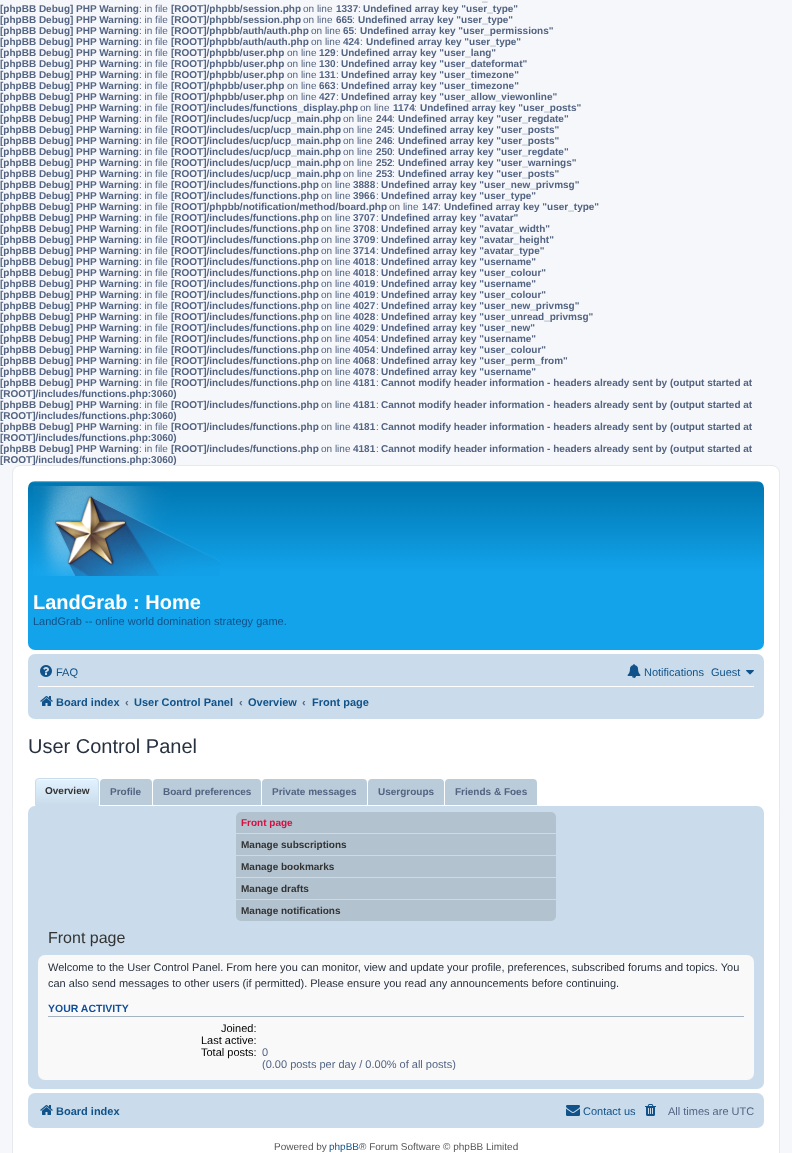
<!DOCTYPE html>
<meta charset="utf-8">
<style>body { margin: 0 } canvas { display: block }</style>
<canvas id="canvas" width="792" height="1153"></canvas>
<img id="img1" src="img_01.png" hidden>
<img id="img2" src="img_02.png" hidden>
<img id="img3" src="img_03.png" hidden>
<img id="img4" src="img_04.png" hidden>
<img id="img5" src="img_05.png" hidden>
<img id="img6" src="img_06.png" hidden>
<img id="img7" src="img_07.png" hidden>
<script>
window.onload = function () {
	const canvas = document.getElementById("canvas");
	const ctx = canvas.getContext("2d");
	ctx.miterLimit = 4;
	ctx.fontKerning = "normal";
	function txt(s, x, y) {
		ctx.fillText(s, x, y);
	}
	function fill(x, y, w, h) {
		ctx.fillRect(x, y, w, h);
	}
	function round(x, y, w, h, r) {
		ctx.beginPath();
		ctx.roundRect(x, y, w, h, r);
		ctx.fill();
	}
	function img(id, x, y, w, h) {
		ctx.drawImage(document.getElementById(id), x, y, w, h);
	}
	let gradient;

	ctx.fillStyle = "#F5F7FA";
	fill(0, 0, 792, 1153);
	ctx.fillStyle = "#FFFFFF";
	ctx.beginPath();
	ctx.roundRect(12.5, 465.5, 767, 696, 7.5);
	ctx.fill();
	ctx.strokeStyle = "#E6E9ED";
	ctx.stroke();
	gradient = ctx.createLinearGradient(396, 481, 396, 650);
	gradient.addColorStop(0, "#6ACEFF");
	gradient.addColorStop(0.01, "#0076B1");
	gradient.addColorStop(0.54, "#12A3EB");
	gradient.addColorStop(1, "#12A3EB");
	ctx.fillStyle = gradient;
	round(28, 481, 736, 169, 7);
	img("img1", 33, 486, 187, 90);
	ctx.fillStyle = "#CADCEB";
	round(28, 654, 736, 65, 7);
	img("img2", 40, 665, 12, 12);
	img("img3", 627, 664, 14, 14);
	img("img4", 746, 670, 8, 5);
	ctx.fillStyle = "#FFFFFF";
	fill(38, 686, 716, 1);
	img("img5", 40, 696, 13, 10);
	ctx.save();
	ctx.beginPath();
	ctx.roundRect(35, 778, 64, 28, [4, 4, 0, 0]);
	ctx.clip();
	gradient = ctx.createLinearGradient(67, 779, 67, 805);
	gradient.addColorStop(0, "#E2F2FF");
	gradient.addColorStop(1, "#CADCEB");
	ctx.fillStyle = gradient;
	fill(35, 779, 64, 26);
	ctx.restore();
	ctx.fillStyle = "#F2F9FF";
	ctx.beginPath();
	ctx.moveTo(39, 780);
	ctx.lineTo(95, 780);
	ctx.bezierCurveTo(97, 780, 98, 781, 98, 783);
	ctx.bezierCurveTo(98, 777, 90, 779, 86, 779);
	ctx.lineTo(48, 779);
	ctx.bezierCurveTo(44, 779, 36, 777, 36, 783);
	ctx.bezierCurveTo(36, 781, 37, 780, 39, 780);
	ctx.closePath();
	ctx.fill();
	ctx.beginPath();
	ctx.roundRect(35.5, 778.5, 63, 27, [3.5, 3.5, 0, 0]);
	ctx.strokeStyle = "#CADCEB";
	ctx.stroke();
	ctx.fillStyle = "#BACCD9";
	ctx.beginPath();
	ctx.roundRect(100, 779, 52, 26, [4, 4, 0, 0]);
	ctx.fill();
	ctx.beginPath();
	ctx.roundRect(153, 779, 108, 26, [4, 4, 0, 0]);
	ctx.fill();
	ctx.beginPath();
	ctx.roundRect(262, 779, 105, 26, [4, 4, 0, 0]);
	ctx.fill();
	ctx.beginPath();
	ctx.roundRect(368, 779, 76, 26, [4, 4, 0, 0]);
	ctx.fill();
	ctx.beginPath();
	ctx.roundRect(445, 779, 92, 26, [4, 4, 0, 0]);
	ctx.fill();
	ctx.fillStyle = "#CADCEB";
	round(28, 806, 736, 283, 7);
	ctx.fillStyle = "#B2C2CF";
	ctx.beginPath();
	ctx.roundRect(236, 812, 320, 21, [5, 5, 0, 0]);
	ctx.fill();
	fill(236, 834, 320, 21);
	fill(236, 856, 320, 21);
	fill(236, 878, 320, 21);
	ctx.beginPath();
	ctx.roundRect(236, 900, 320, 21, [0, 0, 5, 5]);
	ctx.fill();
	ctx.fillStyle = "#F9F9F9";
	round(38, 955, 716, 125, 7);
	ctx.fillStyle = "#A4B3BF";
	fill(48, 1016, 696, 1);
	ctx.fillStyle = "#CADCEB";
	round(28, 1093, 736, 35, 7);
	img("img5", 40, 1105, 13, 10);
	img("img6", 566, 1105, 14, 11);
	img("img7", 645, 1104, 11, 12);
	ctx.font = "bold 10px Liberation Sans";
	ctx.fillStyle = "#536482";
	txt("_", 482, 1);
	txt("[phpBB Debug] PHP Warning", 0, 12);
	ctx.font = "10px Liberation Sans";
	txt(": in file", 139, 12);
	ctx.font = "bold 10px Liberation Sans";
	txt("[ROOT]/phpbb/session.php", 171, 12);
	ctx.font = "10px Liberation Sans";
	txt("on line", 303, 12);
	ctx.font = "bold 10px Liberation Sans";
	txt("1337", 336, 12);
	ctx.font = "10px Liberation Sans";
	txt(":", 358, 12);
	ctx.font = "bold 10px Liberation Sans";
	txt("Undefined array key \"user_type\"", 363, 12);
	txt("[phpBB Debug] PHP Warning", 0, 23);
	ctx.font = "10px Liberation Sans";
	txt(": in file", 139, 23);
	ctx.font = "bold 10px Liberation Sans";
	txt("[ROOT]/phpbb/session.php", 171, 23);
	ctx.font = "10px Liberation Sans";
	txt("on line", 303, 23);
	ctx.font = "bold 10px Liberation Sans";
	txt("665", 336, 23);
	ctx.font = "10px Liberation Sans";
	txt(":", 352, 23);
	ctx.font = "bold 10px Liberation Sans";
	txt("Undefined array key \"user_type\"", 358, 23);
	txt("[phpBB Debug] PHP Warning", 0, 34);
	ctx.font = "10px Liberation Sans";
	txt(": in file", 139, 34);
	ctx.font = "bold 10px Liberation Sans";
	txt("[ROOT]/phpbb/auth/auth.php", 171, 34);
	ctx.font = "10px Liberation Sans";
	txt("on line", 311, 34);
	ctx.font = "bold 10px Liberation Sans";
	txt("65", 343, 34);
	ctx.font = "10px Liberation Sans";
	txt(":", 354, 34);
	ctx.font = "bold 10px Liberation Sans";
	txt("Undefined array key \"user_permissions\"", 360, 34);
	txt("[phpBB Debug] PHP Warning", 0, 45);
	ctx.font = "10px Liberation Sans";
	txt(": in file", 139, 45);
	ctx.font = "bold 10px Liberation Sans";
	txt("[ROOT]/phpbb/auth/auth.php", 171, 45);
	ctx.font = "10px Liberation Sans";
	txt("on line", 311, 45);
	ctx.font = "bold 10px Liberation Sans";
	txt("424", 343, 45);
	ctx.font = "10px Liberation Sans";
	txt(":", 360, 45);
	ctx.font = "bold 10px Liberation Sans";
	txt("Undefined array key \"user_type\"", 366, 45);
	txt("[phpBB Debug] PHP Warning", 0, 56);
	ctx.font = "10px Liberation Sans";
	txt(": in file", 139, 56);
	ctx.font = "bold 10px Liberation Sans";
	txt("[ROOT]/phpbb/user.php", 171, 56);
	ctx.font = "10px Liberation Sans";
	txt("on line", 287, 56);
	ctx.font = "bold 10px Liberation Sans";
	txt("129", 319, 56);
	ctx.font = "10px Liberation Sans";
	txt(":", 336, 56);
	ctx.font = "bold 10px Liberation Sans";
	txt("Undefined array key \"user_lang\"", 341, 56);
	txt("[phpBB Debug] PHP Warning", 0, 67);
	ctx.font = "10px Liberation Sans";
	txt(": in file", 139, 67);
	ctx.font = "bold 10px Liberation Sans";
	txt("[ROOT]/phpbb/user.php", 171, 67);
	ctx.font = "10px Liberation Sans";
	txt("on line", 287, 67);
	ctx.font = "bold 10px Liberation Sans";
	txt("130", 319, 67);
	ctx.font = "10px Liberation Sans";
	txt(":", 336, 67);
	ctx.font = "bold 10px Liberation Sans";
	txt("Undefined array key \"user_dateformat\"", 341, 67);
	txt("[phpBB Debug] PHP Warning", 0, 78);
	ctx.font = "10px Liberation Sans";
	txt(": in file", 139, 78);
	ctx.font = "bold 10px Liberation Sans";
	txt("[ROOT]/phpbb/user.php", 171, 78);
	ctx.font = "10px Liberation Sans";
	txt("on line", 287, 78);
	ctx.font = "bold 10px Liberation Sans";
	txt("131", 319, 78);
	ctx.font = "10px Liberation Sans";
	txt(":", 336, 78);
	ctx.font = "bold 10px Liberation Sans";
	txt("Undefined array key \"user_timezone\"", 341, 78);
	txt("[phpBB Debug] PHP Warning", 0, 89);
	ctx.font = "10px Liberation Sans";
	txt(": in file", 139, 89);
	ctx.font = "bold 10px Liberation Sans";
	txt("[ROOT]/phpbb/user.php", 171, 89);
	ctx.font = "10px Liberation Sans";
	txt("on line", 287, 89);
	ctx.font = "bold 10px Liberation Sans";
	txt("663", 319, 89);
	ctx.font = "10px Liberation Sans";
	txt(":", 336, 89);
	ctx.font = "bold 10px Liberation Sans";
	txt("Undefined array key \"user_timezone\"", 341, 89);
	txt("[phpBB Debug] PHP Warning", 0, 100);
	ctx.font = "10px Liberation Sans";
	txt(": in file", 139, 100);
	ctx.font = "bold 10px Liberation Sans";
	txt("[ROOT]/phpbb/user.php", 171, 100);
	ctx.font = "10px Liberation Sans";
	txt("on line", 287, 100);
	ctx.font = "bold 10px Liberation Sans";
	txt("427", 319, 100);
	ctx.font = "10px Liberation Sans";
	txt(":", 336, 100);
	ctx.font = "bold 10px Liberation Sans";
	txt("Undefined array key \"user_allow_viewonline\"", 341, 100);
	txt("[phpBB Debug] PHP Warning", 0, 111);
	ctx.font = "10px Liberation Sans";
	txt(": in file", 139, 111);
	ctx.font = "bold 10px Liberation Sans";
	txt("[ROOT]/includes/functions_display.php", 171, 111);
	ctx.font = "10px Liberation Sans";
	txt("on line", 360, 111);
	ctx.font = "bold 10px Liberation Sans";
	txt("1174", 393, 111);
	ctx.font = "10px Liberation Sans";
	txt(":", 414, 111);
	ctx.font = "bold 10px Liberation Sans";
	txt("Undefined array key \"user_posts\"", 420, 111);
	txt("[phpBB Debug] PHP Warning", 0, 122);
	ctx.font = "10px Liberation Sans";
	txt(": in file", 139, 122);
	ctx.font = "bold 10px Liberation Sans";
	txt("[ROOT]/includes/ucp/ucp_main.php", 171, 122);
	ctx.font = "10px Liberation Sans";
	txt("on line", 343, 122);
	ctx.font = "bold 10px Liberation Sans";
	txt("244", 376, 122);
	ctx.font = "10px Liberation Sans";
	txt(":", 392, 122);
	ctx.font = "bold 10px Liberation Sans";
	txt("Undefined array key \"user_regdate\"", 398, 122);
	txt("[phpBB Debug] PHP Warning", 0, 133);
	ctx.font = "10px Liberation Sans";
	txt(": in file", 139, 133);
	ctx.font = "bold 10px Liberation Sans";
	txt("[ROOT]/includes/ucp/ucp_main.php", 171, 133);
	ctx.font = "10px Liberation Sans";
	txt("on line", 343, 133);
	ctx.font = "bold 10px Liberation Sans";
	txt("245", 376, 133);
	ctx.font = "10px Liberation Sans";
	txt(":", 392, 133);
	ctx.font = "bold 10px Liberation Sans";
	txt("Undefined array key \"user_posts\"", 398, 133);
	txt("[phpBB Debug] PHP Warning", 0, 144);
	ctx.font = "10px Liberation Sans";
	txt(": in file", 139, 144);
	ctx.font = "bold 10px Liberation Sans";
	txt("[ROOT]/includes/ucp/ucp_main.php", 171, 144);
	ctx.font = "10px Liberation Sans";
	txt("on line", 343, 144);
	ctx.font = "bold 10px Liberation Sans";
	txt("246", 376, 144);
	ctx.font = "10px Liberation Sans";
	txt(":", 392, 144);
	ctx.font = "bold 10px Liberation Sans";
	txt("Undefined array key \"user_posts\"", 398, 144);
	txt("[phpBB Debug] PHP Warning", 0, 155);
	ctx.font = "10px Liberation Sans";
	txt(": in file", 139, 155);
	ctx.font = "bold 10px Liberation Sans";
	txt("[ROOT]/includes/ucp/ucp_main.php", 171, 155);
	ctx.font = "10px Liberation Sans";
	txt("on line", 343, 155);
	ctx.font = "bold 10px Liberation Sans";
	txt("250", 376, 155);
	ctx.font = "10px Liberation Sans";
	txt(":", 392, 155);
	ctx.font = "bold 10px Liberation Sans";
	txt("Undefined array key \"user_regdate\"", 398, 155);
	txt("[phpBB Debug] PHP Warning", 0, 166);
	ctx.font = "10px Liberation Sans";
	txt(": in file", 139, 166);
	ctx.font = "bold 10px Liberation Sans";
	txt("[ROOT]/includes/ucp/ucp_main.php", 171, 166);
	ctx.font = "10px Liberation Sans";
	txt("on line", 343, 166);
	ctx.font = "bold 10px Liberation Sans";
	txt("252", 376, 166);
	ctx.font = "10px Liberation Sans";
	txt(":", 392, 166);
	ctx.font = "bold 10px Liberation Sans";
	txt("Undefined array key \"user_warnings\"", 398, 166);
	txt("[phpBB Debug] PHP Warning", 0, 177);
	ctx.font = "10px Liberation Sans";
	txt(": in file", 139, 177);
	ctx.font = "bold 10px Liberation Sans";
	txt("[ROOT]/includes/ucp/ucp_main.php", 171, 177);
	ctx.font = "10px Liberation Sans";
	txt("on line", 343, 177);
	ctx.font = "bold 10px Liberation Sans";
	txt("253", 376, 177);
	ctx.font = "10px Liberation Sans";
	txt(":", 392, 177);
	ctx.font = "bold 10px Liberation Sans";
	txt("Undefined array key \"user_posts\"", 398, 177);
	txt("[phpBB Debug] PHP Warning", 0, 188);
	ctx.font = "10px Liberation Sans";
	txt(": in file", 139, 188);
	ctx.font = "bold 10px Liberation Sans";
	txt("[ROOT]/includes/functions.php", 171, 188);
	ctx.font = "10px Liberation Sans";
	txt("on line", 321, 188);
	ctx.font = "bold 10px Liberation Sans";
	txt("3888", 353, 188);
	ctx.font = "10px Liberation Sans";
	txt(":", 376, 188);
	ctx.font = "bold 10px Liberation Sans";
	txt("Undefined array key \"user_new_privmsg\"", 381, 188);
	txt("[phpBB Debug] PHP Warning", 0, 199);
	ctx.font = "10px Liberation Sans";
	txt(": in file", 139, 199);
	ctx.font = "bold 10px Liberation Sans";
	txt("[ROOT]/includes/functions.php", 171, 199);
	ctx.font = "10px Liberation Sans";
	txt("on line", 321, 199);
	ctx.font = "bold 10px Liberation Sans";
	txt("3966", 353, 199);
	ctx.font = "10px Liberation Sans";
	txt(":", 376, 199);
	ctx.font = "bold 10px Liberation Sans";
	txt("Undefined array key \"user_type\"", 381, 199);
	txt("[phpBB Debug] PHP Warning", 0, 210);
	ctx.font = "10px Liberation Sans";
	txt(": in file", 139, 210);
	ctx.font = "bold 10px Liberation Sans";
	txt("[ROOT]/phpbb/notification/method/board.php", 171, 210);
	ctx.font = "10px Liberation Sans";
	txt("on line", 389, 210);
	ctx.font = "bold 10px Liberation Sans";
	txt("147", 422, 210);
	ctx.font = "10px Liberation Sans";
	txt(":", 438, 210);
	ctx.font = "bold 10px Liberation Sans";
	txt("Undefined array key \"user_type\"", 444, 210);
	txt("[phpBB Debug] PHP Warning", 0, 221);
	ctx.font = "10px Liberation Sans";
	txt(": in file", 139, 221);
	ctx.font = "bold 10px Liberation Sans";
	txt("[ROOT]/includes/functions.php", 171, 221);
	ctx.font = "10px Liberation Sans";
	txt("on line", 321, 221);
	ctx.font = "bold 10px Liberation Sans";
	txt("3707", 353, 221);
	ctx.font = "10px Liberation Sans";
	txt(":", 376, 221);
	ctx.font = "bold 10px Liberation Sans";
	txt("Undefined array key \"avatar\"", 381, 221);
	txt("[phpBB Debug] PHP Warning", 0, 232);
	ctx.font = "10px Liberation Sans";
	txt(": in file", 139, 232);
	ctx.font = "bold 10px Liberation Sans";
	txt("[ROOT]/includes/functions.php", 171, 232);
	ctx.font = "10px Liberation Sans";
	txt("on line", 321, 232);
	ctx.font = "bold 10px Liberation Sans";
	txt("3708", 353, 232);
	ctx.font = "10px Liberation Sans";
	txt(":", 376, 232);
	ctx.font = "bold 10px Liberation Sans";
	txt("Undefined array key \"avatar_width\"", 381, 232);
	txt("[phpBB Debug] PHP Warning", 0, 243);
	ctx.font = "10px Liberation Sans";
	txt(": in file", 139, 243);
	ctx.font = "bold 10px Liberation Sans";
	txt("[ROOT]/includes/functions.php", 171, 243);
	ctx.font = "10px Liberation Sans";
	txt("on line", 321, 243);
	ctx.font = "bold 10px Liberation Sans";
	txt("3709", 353, 243);
	ctx.font = "10px Liberation Sans";
	txt(":", 376, 243);
	ctx.font = "bold 10px Liberation Sans";
	txt("Undefined array key \"avatar_height\"", 381, 243);
	txt("[phpBB Debug] PHP Warning", 0, 254);
	ctx.font = "10px Liberation Sans";
	txt(": in file", 139, 254);
	ctx.font = "bold 10px Liberation Sans";
	txt("[ROOT]/includes/functions.php", 171, 254);
	ctx.font = "10px Liberation Sans";
	txt("on line", 321, 254);
	ctx.font = "bold 10px Liberation Sans";
	txt("3714", 353, 254);
	ctx.font = "10px Liberation Sans";
	txt(":", 376, 254);
	ctx.font = "bold 10px Liberation Sans";
	txt("Undefined array key \"avatar_type\"", 381, 254);
	txt("[phpBB Debug] PHP Warning", 0, 265);
	ctx.font = "10px Liberation Sans";
	txt(": in file", 139, 265);
	ctx.font = "bold 10px Liberation Sans";
	txt("[ROOT]/includes/functions.php", 171, 265);
	ctx.font = "10px Liberation Sans";
	txt("on line", 321, 265);
	ctx.font = "bold 10px Liberation Sans";
	txt("4018", 353, 265);
	ctx.font = "10px Liberation Sans";
	txt(":", 376, 265);
	ctx.font = "bold 10px Liberation Sans";
	txt("Undefined array key \"username\"", 381, 265);
	txt("[phpBB Debug] PHP Warning", 0, 276);
	ctx.font = "10px Liberation Sans";
	txt(": in file", 139, 276);
	ctx.font = "bold 10px Liberation Sans";
	txt("[ROOT]/includes/functions.php", 171, 276);
	ctx.font = "10px Liberation Sans";
	txt("on line", 321, 276);
	ctx.font = "bold 10px Liberation Sans";
	txt("4018", 353, 276);
	ctx.font = "10px Liberation Sans";
	txt(":", 376, 276);
	ctx.font = "bold 10px Liberation Sans";
	txt("Undefined array key \"user_colour\"", 381, 276);
	txt("[phpBB Debug] PHP Warning", 0, 287);
	ctx.font = "10px Liberation Sans";
	txt(": in file", 139, 287);
	ctx.font = "bold 10px Liberation Sans";
	txt("[ROOT]/includes/functions.php", 171, 287);
	ctx.font = "10px Liberation Sans";
	txt("on line", 321, 287);
	ctx.font = "bold 10px Liberation Sans";
	txt("4019", 353, 287);
	ctx.font = "10px Liberation Sans";
	txt(":", 376, 287);
	ctx.font = "bold 10px Liberation Sans";
	txt("Undefined array key \"username\"", 381, 287);
	txt("[phpBB Debug] PHP Warning", 0, 298);
	ctx.font = "10px Liberation Sans";
	txt(": in file", 139, 298);
	ctx.font = "bold 10px Liberation Sans";
	txt("[ROOT]/includes/functions.php", 171, 298);
	ctx.font = "10px Liberation Sans";
	txt("on line", 321, 298);
	ctx.font = "bold 10px Liberation Sans";
	txt("4019", 353, 298);
	ctx.font = "10px Liberation Sans";
	txt(":", 376, 298);
	ctx.font = "bold 10px Liberation Sans";
	txt("Undefined array key \"user_colour\"", 381, 298);
	txt("[phpBB Debug] PHP Warning", 0, 309);
	ctx.font = "10px Liberation Sans";
	txt(": in file", 139, 309);
	ctx.font = "bold 10px Liberation Sans";
	txt("[ROOT]/includes/functions.php", 171, 309);
	ctx.font = "10px Liberation Sans";
	txt("on line", 321, 309);
	ctx.font = "bold 10px Liberation Sans";
	txt("4027", 353, 309);
	ctx.font = "10px Liberation Sans";
	txt(":", 376, 309);
	ctx.font = "bold 10px Liberation Sans";
	txt("Undefined array key \"user_new_privmsg\"", 381, 309);
	txt("[phpBB Debug] PHP Warning", 0, 320);
	ctx.font = "10px Liberation Sans";
	txt(": in file", 139, 320);
	ctx.font = "bold 10px Liberation Sans";
	txt("[ROOT]/includes/functions.php", 171, 320);
	ctx.font = "10px Liberation Sans";
	txt("on line", 321, 320);
	ctx.font = "bold 10px Liberation Sans";
	txt("4028", 353, 320);
	ctx.font = "10px Liberation Sans";
	txt(":", 376, 320);
	ctx.font = "bold 10px Liberation Sans";
	txt("Undefined array key \"user_unread_privmsg\"", 381, 320);
	txt("[phpBB Debug] PHP Warning", 0, 331);
	ctx.font = "10px Liberation Sans";
	txt(": in file", 139, 331);
	ctx.font = "bold 10px Liberation Sans";
	txt("[ROOT]/includes/functions.php", 171, 331);
	ctx.font = "10px Liberation Sans";
	txt("on line", 321, 331);
	ctx.font = "bold 10px Liberation Sans";
	txt("4029", 353, 331);
	ctx.font = "10px Liberation Sans";
	txt(":", 376, 331);
	ctx.font = "bold 10px Liberation Sans";
	txt("Undefined array key \"user_new\"", 381, 331);
	txt("[phpBB Debug] PHP Warning", 0, 342);
	ctx.font = "10px Liberation Sans";
	txt(": in file", 139, 342);
	ctx.font = "bold 10px Liberation Sans";
	txt("[ROOT]/includes/functions.php", 171, 342);
	ctx.font = "10px Liberation Sans";
	txt("on line", 321, 342);
	ctx.font = "bold 10px Liberation Sans";
	txt("4054", 353, 342);
	ctx.font = "10px Liberation Sans";
	txt(":", 376, 342);
	ctx.font = "bold 10px Liberation Sans";
	txt("Undefined array key \"username\"", 381, 342);
	txt("[phpBB Debug] PHP Warning", 0, 353);
	ctx.font = "10px Liberation Sans";
	txt(": in file", 139, 353);
	ctx.font = "bold 10px Liberation Sans";
	txt("[ROOT]/includes/functions.php", 171, 353);
	ctx.font = "10px Liberation Sans";
	txt("on line", 321, 353);
	ctx.font = "bold 10px Liberation Sans";
	txt("4054", 353, 353);
	ctx.font = "10px Liberation Sans";
	txt(":", 376, 353);
	ctx.font = "bold 10px Liberation Sans";
	txt("Undefined array key \"user_colour\"", 381, 353);
	txt("[phpBB Debug] PHP Warning", 0, 364);
	ctx.font = "10px Liberation Sans";
	txt(": in file", 139, 364);
	ctx.font = "bold 10px Liberation Sans";
	txt("[ROOT]/includes/functions.php", 171, 364);
	ctx.font = "10px Liberation Sans";
	txt("on line", 321, 364);
	ctx.font = "bold 10px Liberation Sans";
	txt("4068", 353, 364);
	ctx.font = "10px Liberation Sans";
	txt(":", 376, 364);
	ctx.font = "bold 10px Liberation Sans";
	txt("Undefined array key \"user_perm_from\"", 381, 364);
	txt("[phpBB Debug] PHP Warning", 0, 375);
	ctx.font = "10px Liberation Sans";
	txt(": in file", 139, 375);
	ctx.font = "bold 10px Liberation Sans";
	txt("[ROOT]/includes/functions.php", 171, 375);
	ctx.font = "10px Liberation Sans";
	txt("on line", 321, 375);
	ctx.font = "bold 10px Liberation Sans";
	txt("4078", 353, 375);
	ctx.font = "10px Liberation Sans";
	txt(":", 376, 375);
	ctx.font = "bold 10px Liberation Sans";
	txt("Undefined array key \"username\"", 381, 375);
	txt("[phpBB Debug] PHP Warning", 0, 386);
	ctx.font = "10px Liberation Sans";
	txt(": in file", 139, 386);
	ctx.font = "bold 10px Liberation Sans";
	txt("[ROOT]/includes/functions.php", 171, 386);
	ctx.font = "10px Liberation Sans";
	txt("on line", 321, 386);
	ctx.font = "bold 10px Liberation Sans";
	txt("4181", 353, 386);
	ctx.font = "10px Liberation Sans";
	txt(":", 376, 386);
	ctx.font = "bold 10px Liberation Sans";
	txt("Cannot modify header information - headers already sent by (output started at", 381, 386);
	txt("[ROOT]/includes/functions.php:3060)", 0, 397);
	txt("[phpBB Debug] PHP Warning", 0, 408);
	ctx.font = "10px Liberation Sans";
	txt(": in file", 139, 408);
	ctx.font = "bold 10px Liberation Sans";
	txt("[ROOT]/includes/functions.php", 171, 408);
	ctx.font = "10px Liberation Sans";
	txt("on line", 321, 408);
	ctx.font = "bold 10px Liberation Sans";
	txt("4181", 353, 408);
	ctx.font = "10px Liberation Sans";
	txt(":", 376, 408);
	ctx.font = "bold 10px Liberation Sans";
	txt("Cannot modify header information - headers already sent by (output started at", 381, 408);
	txt("[ROOT]/includes/functions.php:3060)", 0, 419);
	txt("[phpBB Debug] PHP Warning", 0, 430);
	ctx.font = "10px Liberation Sans";
	txt(": in file", 139, 430);
	ctx.font = "bold 10px Liberation Sans";
	txt("[ROOT]/includes/functions.php", 171, 430);
	ctx.font = "10px Liberation Sans";
	txt("on line", 321, 430);
	ctx.font = "bold 10px Liberation Sans";
	txt("4181", 353, 430);
	ctx.font = "10px Liberation Sans";
	txt(":", 376, 430);
	ctx.font = "bold 10px Liberation Sans";
	txt("Cannot modify header information - headers already sent by (output started at", 381, 430);
	txt("[ROOT]/includes/functions.php:3060)", 0, 441);
	txt("[phpBB Debug] PHP Warning", 0, 452);
	ctx.font = "10px Liberation Sans";
	txt(": in file", 139, 452);
	ctx.font = "bold 10px Liberation Sans";
	txt("[ROOT]/includes/functions.php", 171, 452);
	ctx.font = "10px Liberation Sans";
	txt("on line", 321, 452);
	ctx.font = "bold 10px Liberation Sans";
	txt("4181", 353, 452);
	ctx.font = "10px Liberation Sans";
	txt(":", 376, 452);
	ctx.font = "bold 10px Liberation Sans";
	txt("Cannot modify header information - headers already sent by (output started at", 381, 452);
	txt("[ROOT]/includes/functions.php:3060)", 0, 463);
	ctx.font = "bold 20px Liberation Sans";
	ctx.fillStyle = "#FFFFFF";
	txt("LandGrab : Home", 33, 609);
	ctx.font = "11px Liberation Sans";
	ctx.fillStyle = "#105289";
	txt("LandGrab -- online world domination strategy game.", 33, 625);
	txt("FAQ", 56, 676);
	txt("Notifications", 644, 676);
	txt("Guest", 711, 676);
	ctx.font = "bold 11px Liberation Sans";
	txt("Board index", 56, 706);
	ctx.fillStyle = "#536482";
	txt("‹", 125, 706);
	ctx.fillStyle = "#105289";
	txt("User Control Panel", 134, 706);
	ctx.fillStyle = "#536482";
	txt("‹", 239, 706);
	ctx.fillStyle = "#105289";
	txt("Overview", 248, 706);
	ctx.fillStyle = "#536482";
	txt("‹", 302, 706);
	ctx.fillStyle = "#105289";
	txt("Front page", 312, 706);
	ctx.font = "20px Liberation Sans";
	ctx.fillStyle = "#28313F";
	txt("User Control Panel", 28, 753);
	ctx.font = "bold 10px Liberation Sans";
	ctx.fillStyle = "#333333";
	txt("Overview", 45, 794);
	ctx.fillStyle = "#536482";
	txt("Profile", 110, 795);
	txt("Board preferences", 163, 795);
	txt("Private messages", 272, 795);
	txt("Usergroups", 378, 795);
	txt("Friends & Foes", 455, 795);
	ctx.fillStyle = "#D31141";
	txt("Front page", 241, 826);
	ctx.fillStyle = "#333333";
	txt("Manage subscriptions", 241, 848);
	txt("Manage bookmarks", 241, 870);
	txt("Manage drafts", 241, 892);
	txt("Manage notifications", 241, 914);
	ctx.font = "16px Liberation Sans";
	txt("Front page", 48, 943);
	ctx.font = "11px Liberation Sans";
	ctx.fillStyle = "#28313F";
	txt("Welcome to the User Control Panel. From here you can monitor, view and update your profile, preferences, subscribed forums and topics. You", 48, 971);
	txt("can also send messages to other users (if permitted). Please ensure you read any announcements before continuing.", 48, 987);
	ctx.font = "bold 10.5px Liberation Sans";
	ctx.fillStyle = "#115098";
	txt("YOUR ACTIVITY", 48, 1012);
	ctx.font = "11px Liberation Sans";
	ctx.fillStyle = "#000000";
	txt("Joined:", 221, 1032);
	txt("Last active:", 201, 1044);
	txt("Total posts:", 201, 1056);
	ctx.fillStyle = "#536482";
	txt("0", 262, 1056);
	ctx.save();
	ctx.beginPath();
	ctx.rect(257, 1046, 457, 24);
	ctx.clip();
	txt("(0.00 posts per day / 0.00% of all posts)", 262, 1068);
	ctx.restore();
	ctx.font = "bold 11px Liberation Sans";
	ctx.fillStyle = "#105289";
	txt("Board index", 56, 1115);
	ctx.font = "11px Liberation Sans";
	txt("Contact us", 583, 1115);
	ctx.fillStyle = "#536482";
	txt("All times are UTC", 668, 1115);
	ctx.font = "10px Liberation Sans";
	ctx.fillStyle = "#555555";
	txt("Powered by", 274, 1150);
	ctx.fillStyle = "#105289";
	txt("phpBB", 329, 1150);
	ctx.fillStyle = "#555555";
	txt("® Forum Software © phpBB Limited", 359, 1150);
};
</script>
